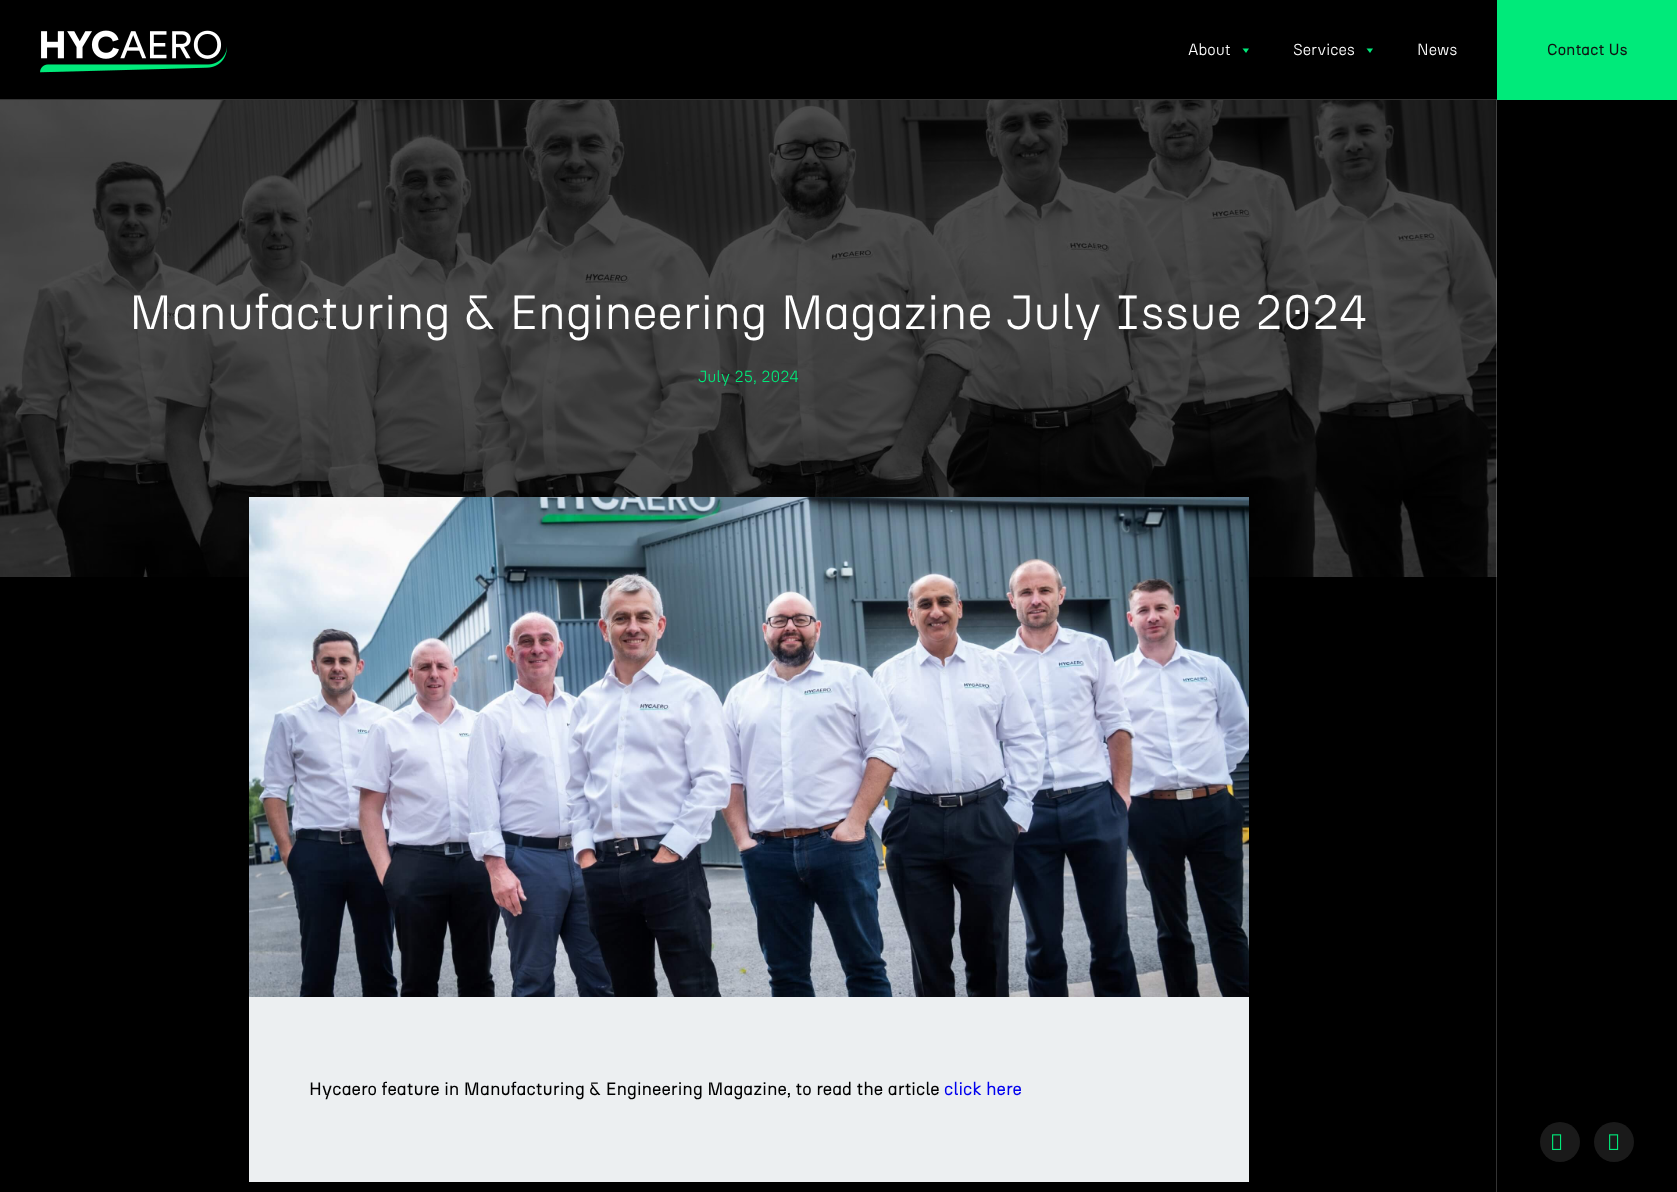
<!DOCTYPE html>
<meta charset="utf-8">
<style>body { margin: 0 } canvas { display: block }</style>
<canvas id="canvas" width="1677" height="1192"></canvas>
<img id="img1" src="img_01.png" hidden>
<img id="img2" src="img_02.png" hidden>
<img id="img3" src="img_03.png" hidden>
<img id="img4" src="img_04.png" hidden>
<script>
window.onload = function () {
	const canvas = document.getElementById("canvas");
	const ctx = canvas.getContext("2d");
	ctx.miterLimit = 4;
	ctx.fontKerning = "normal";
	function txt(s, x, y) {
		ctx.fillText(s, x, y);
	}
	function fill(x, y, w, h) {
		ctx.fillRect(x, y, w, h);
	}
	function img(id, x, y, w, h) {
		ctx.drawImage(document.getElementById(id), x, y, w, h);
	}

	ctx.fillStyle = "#000000";
	fill(0, 0, 1677, 1192);
	img("img1", 40, 30, 187, 43);
	ctx.fillStyle = "#00EA7A";
	ctx.beginPath();
	ctx.moveTo(1249, 48.5);
	ctx.lineTo(1246, 53);
	ctx.lineTo(1242.5, 48.5);
	ctx.closePath();
	ctx.fill();
	ctx.beginPath();
	ctx.moveTo(1373, 48.5);
	ctx.lineTo(1370, 53);
	ctx.lineTo(1366.5, 48.5);
	ctx.closePath();
	ctx.fill();
	fill(1497, 0, 180, 100);
	ctx.fillStyle = "#333333";
	fill(0, 99, 1497, 1);
	img("img2", 0, 100, 1497, 477);
	ctx.fillStyle = "rgba(255, 255, 255, 0.2)";
	fill(1496, 100, 1, 1092);
	img("img3", 249, 497, 1000, 500);
	ctx.fillStyle = "#ECEFF1";
	fill(249, 997, 1000, 185);
	ctx.fillStyle = "#1A1A1A";
	ctx.beginPath();
	ctx.arc(1560, 1142, 20, 0, Math.PI * 2);
	ctx.fill();
	img("img4", 1552, 1134, 10, 16);
	ctx.beginPath();
	ctx.arc(1614, 1142, 20, 0, Math.PI * 2);
	ctx.fill();
	img("img4", 1609, 1134, 10, 16);
	ctx.font = "300 16px 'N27'";
	ctx.fillStyle = "#FFFFFF";
	txt("About", 1188, 55);
	txt("Services", 1293, 55);
	txt("News", 1417, 55);
	ctx.font = "16px 'N27'";
	ctx.fillStyle = "#111111";
	txt("Contact Us", 1547, 55);
	ctx.font = "300 48px 'N27'";
	ctx.fillStyle = "#FFFFFF";
	txt("Manufacturing & Engineering Magazine July Issue 2024", 129, 329);
	ctx.font = "300 16px 'N27'";
	ctx.fillStyle = "#00EA7A";
	txt("July 25, 2024", 698, 382);
	ctx.font = "18px 'N27'";
	ctx.fillStyle = "#000000";
	txt("Hycaero feature in Manufacturing & Engineering Magazine, to read the article", 309, 1095);
	ctx.fillStyle = "#0000EE";
	txt("click here", 944, 1095);
};
</script>
